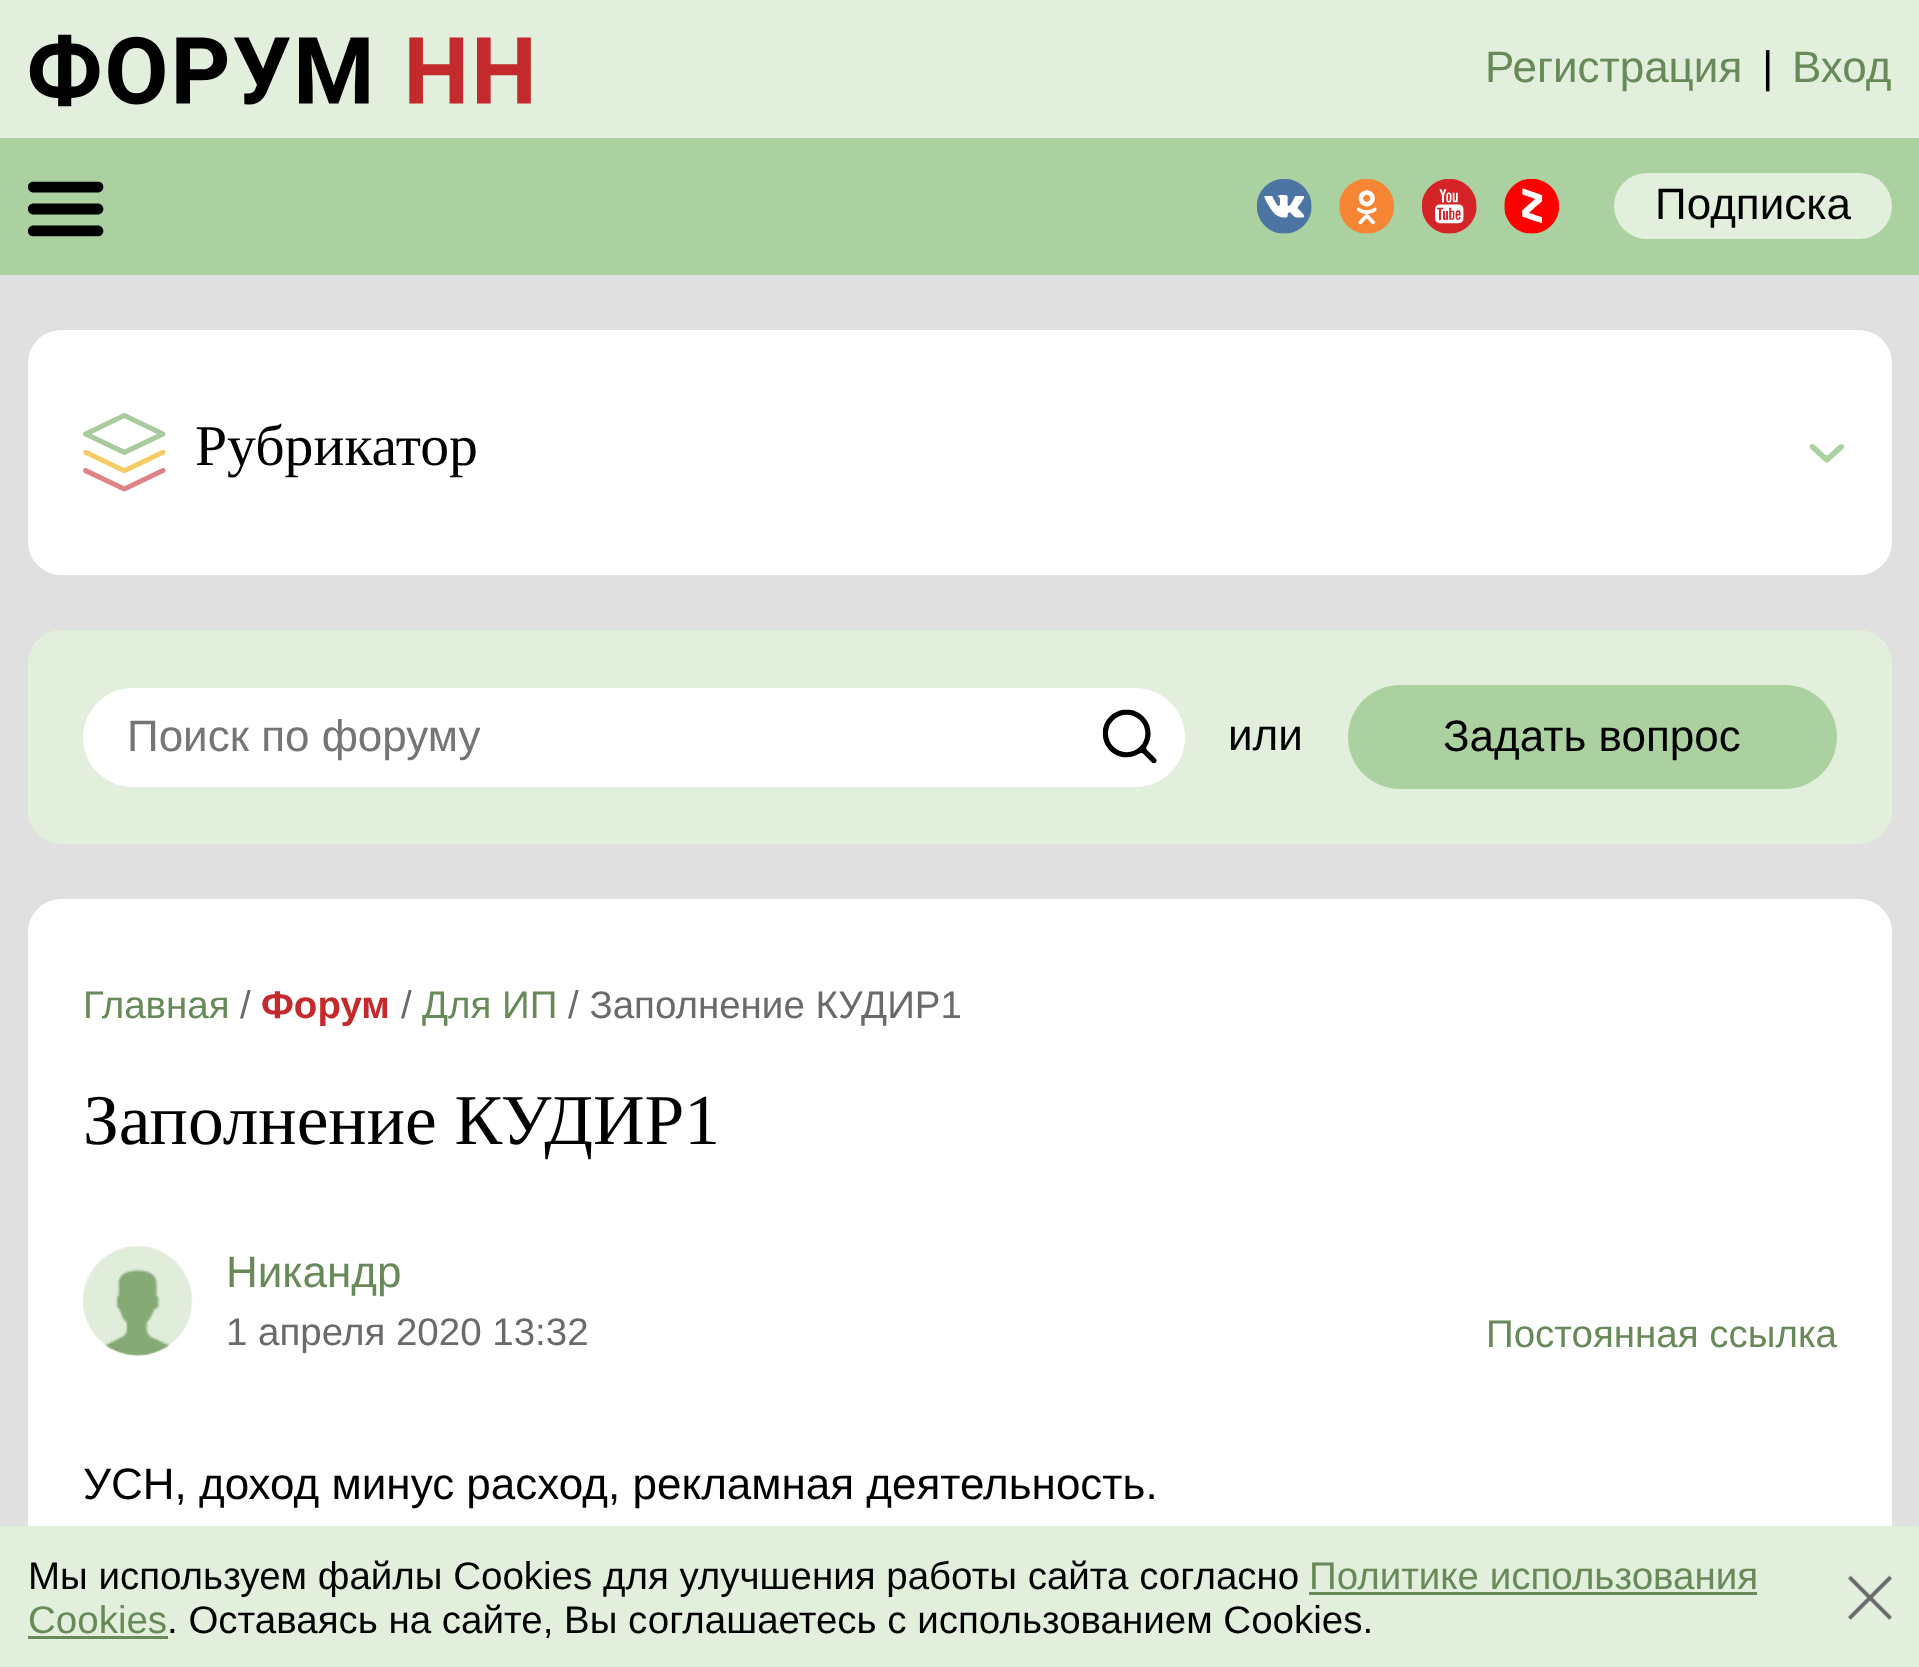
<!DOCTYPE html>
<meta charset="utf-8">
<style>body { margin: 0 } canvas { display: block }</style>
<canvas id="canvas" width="1919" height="1667"></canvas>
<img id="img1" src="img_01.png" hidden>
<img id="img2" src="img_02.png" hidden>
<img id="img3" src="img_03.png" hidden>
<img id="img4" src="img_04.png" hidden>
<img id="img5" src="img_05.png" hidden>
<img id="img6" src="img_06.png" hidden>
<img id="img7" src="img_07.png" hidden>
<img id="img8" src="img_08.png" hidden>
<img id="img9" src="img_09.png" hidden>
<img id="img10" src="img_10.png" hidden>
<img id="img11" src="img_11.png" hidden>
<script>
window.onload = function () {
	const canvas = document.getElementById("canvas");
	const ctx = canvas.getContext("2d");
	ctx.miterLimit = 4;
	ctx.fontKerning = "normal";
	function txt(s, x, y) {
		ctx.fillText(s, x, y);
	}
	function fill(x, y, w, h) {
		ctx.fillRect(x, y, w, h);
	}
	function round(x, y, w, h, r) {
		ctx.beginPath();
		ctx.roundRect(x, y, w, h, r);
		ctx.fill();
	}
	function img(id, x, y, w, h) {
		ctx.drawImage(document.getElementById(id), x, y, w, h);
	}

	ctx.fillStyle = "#E0E0E0";
	fill(0, 0, 1919, 1667);
	ctx.fillStyle = "#E1EFDC";
	fill(0, 0, 1919, 138);
	img("img1", 29, 34, 502, 73);
	ctx.fillStyle = "#ACD1A0";
	fill(0, 138, 1919, 137);
	img("img2", 27, 181, 77, 56);
	ctx.fillStyle = "#FFFFFF";
	ctx.beginPath();
	ctx.arc(1284.5, 206.5, 24.5, 0, Math.PI * 2);
	ctx.fill();
	img("img3", 1257, 179, 55, 55);
	round(1342, 182, 50, 49, 24.5);
	img("img4", 1339, 179, 55, 55);
	ctx.beginPath();
	ctx.arc(1449.5, 206.5, 24.5, 0, Math.PI * 2);
	ctx.fill();
	img("img5", 1422, 179, 55, 55);
	round(1507, 182, 50, 49, 24.5);
	img("img6", 1504, 179, 55, 55);
	ctx.fillStyle = "#E1EFDC";
	round(1614, 173, 278, 66, 33);
	ctx.fillStyle = "#FFFFFF";
	round(28, 330, 1864, 245, 33);
	img("img7", 83, 413, 83, 79);
	img("img8", 1809, 444, 35, 19);
	ctx.fillStyle = "#E1EFDC";
	round(28, 630, 1864, 214, 33);
	ctx.fillStyle = "#FFFFFF";
	round(83, 688, 1102, 99, 49.5);
	img("img9", 1102, 709, 55, 55);
	ctx.fillStyle = "#ACD1A0";
	round(1348, 685, 489, 104, 52);
	ctx.fillStyle = "#FFFFFF";
	round(28, 899, 1864, 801, 33);
	img("img10", 82, 1246, 111, 110);
	ctx.fillStyle = "#E1EFDC";
	fill(0, 1526, 1919, 141);
	ctx.fillStyle = "#688958";
	fill(1309, 1592, 448, 3);
	fill(28, 1636, 140, 3);
	img("img11", 1848, 1575, 44, 45);
	ctx.font = "44px Liberation Sans";
	txt("Регистрация", 1485, 82);
	ctx.fillStyle = "#000000";
	txt("|", 1762, 82);
	ctx.fillStyle = "#688958";
	txt("Вход", 1792, 82);
	ctx.fillStyle = "#000000";
	txt("Подписка", 1655, 219);
	ctx.font = "57.75px Liberation Serif";
	txt("Рубрикатор", 195, 465);
	ctx.font = "44px Liberation Sans";
	ctx.fillStyle = "#757575";
	txt("Поиск по форуму", 127, 751);
	ctx.fillStyle = "#000000";
	txt("или", 1228, 750);
	txt("Задать вопрос", 1443, 751);
	ctx.font = "38.5px Liberation Sans";
	ctx.fillStyle = "#688958";
	txt("Главная", 83, 1018);
	ctx.fillStyle = "#6A6A6A";
	txt("/", 240, 1018);
	ctx.font = "bold 38.5px Liberation Sans";
	ctx.fillStyle = "#C4292C";
	txt("Форум", 261, 1018);
	ctx.font = "38.5px Liberation Sans";
	ctx.fillStyle = "#6A6A6A";
	txt("/", 401, 1018);
	ctx.fillStyle = "#688958";
	txt("Для ИП", 422, 1018);
	ctx.fillStyle = "#6A6A6A";
	txt("/ Заполнение КУДИР1", 568, 1018);
	ctx.font = "71.5px Liberation Serif";
	ctx.fillStyle = "#000000";
	txt("Заполнение КУДИР1", 83, 1144);
	ctx.font = "44px Liberation Sans";
	ctx.fillStyle = "#688958";
	txt("Никандр", 226, 1287);
	ctx.font = "38.5px Liberation Sans";
	ctx.fillStyle = "#6A6A6A";
	txt("1 апреля 2020 13:32", 226, 1345);
	ctx.fillStyle = "#688958";
	txt("Постоянная ссылка", 1486, 1347);
	ctx.font = "44px Liberation Sans";
	ctx.fillStyle = "#000000";
	txt("УСН, доход минус расход, рекламная деятельность.", 83, 1499);
	ctx.font = "38.5px Liberation Sans";
	txt("Мы используем файлы Cookies для улучшения работы сайта согласно", 28, 1589);
	ctx.fillStyle = "#688958";
	txt("Политике использования", 1309, 1589);
	txt("Cookies", 28, 1633);
	ctx.fillStyle = "#000000";
	txt(". Оставаясь на сайте, Вы соглашаетесь с использованием Cookies.", 167, 1633);
};
</script>
